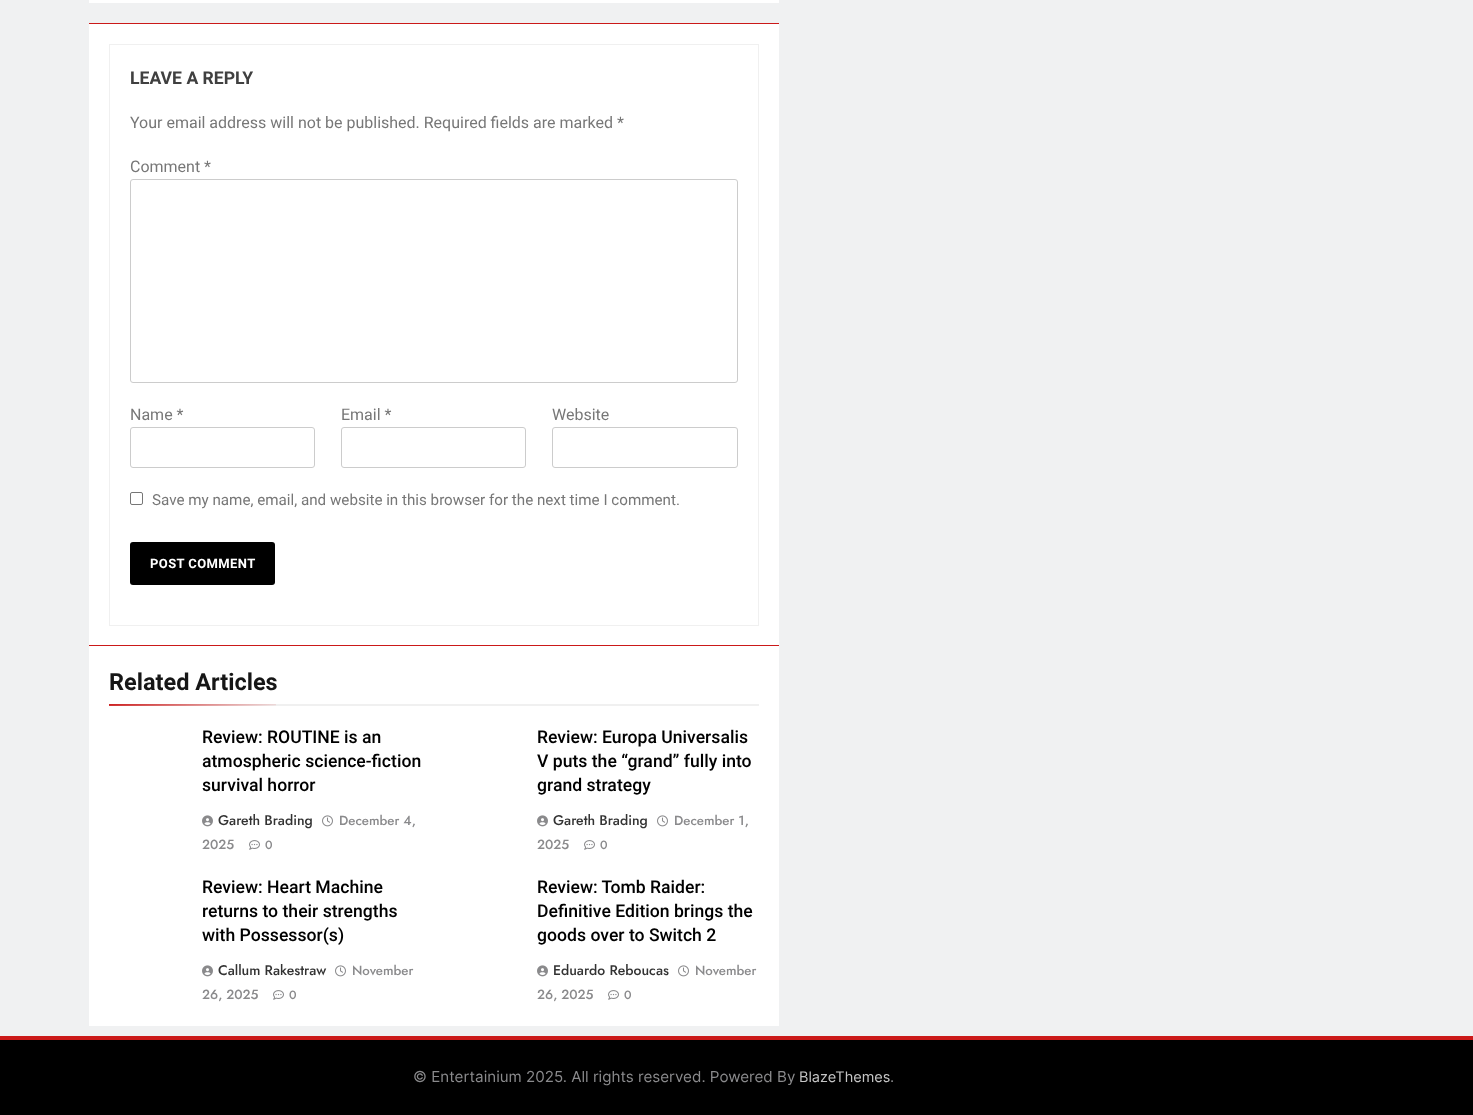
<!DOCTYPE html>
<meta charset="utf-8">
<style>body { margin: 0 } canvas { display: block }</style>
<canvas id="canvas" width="1473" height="1115"></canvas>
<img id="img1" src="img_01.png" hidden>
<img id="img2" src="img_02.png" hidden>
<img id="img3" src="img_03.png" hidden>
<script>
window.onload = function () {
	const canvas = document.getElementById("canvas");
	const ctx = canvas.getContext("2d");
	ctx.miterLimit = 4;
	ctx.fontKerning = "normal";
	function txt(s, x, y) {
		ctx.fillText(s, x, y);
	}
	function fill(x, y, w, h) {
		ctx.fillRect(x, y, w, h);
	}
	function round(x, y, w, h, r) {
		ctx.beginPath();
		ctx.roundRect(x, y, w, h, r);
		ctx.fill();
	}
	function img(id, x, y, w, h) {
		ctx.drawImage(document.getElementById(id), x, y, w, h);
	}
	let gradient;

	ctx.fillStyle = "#F0F1F2";
	fill(0, 0, 1473, 1115);
	ctx.fillStyle = "#FFFFFF";
	fill(89, 0, 690, 3);
	fill(89, 24, 690, 621);
	ctx.fillStyle = "#CB1919";
	fill(89, 23, 690, 1);
	ctx.strokeStyle = "#F0F0F0";
	ctx.strokeRect(109.5, 44.5, 649, 581);
	ctx.beginPath();
	ctx.roundRect(130.5, 179.5, 607, 203, 2.5);
	ctx.strokeStyle = "#CCCCCC";
	ctx.stroke();
	ctx.beginPath();
	ctx.roundRect(130.5, 427.5, 184, 40, 2.5);
	ctx.stroke();
	ctx.beginPath();
	ctx.roundRect(341.5, 427.5, 184, 40, 2.5);
	ctx.stroke();
	ctx.beginPath();
	ctx.roundRect(552.5, 427.5, 185, 40, 2.5);
	ctx.stroke();
	ctx.beginPath();
	ctx.roundRect(130.5, 492.5, 12, 12, 1.5);
	ctx.strokeStyle = "#767676";
	ctx.stroke();
	ctx.fillStyle = "#000000";
	round(130, 542, 145, 43, 3);
	ctx.fillStyle = "#FFFFFF";
	fill(89, 646, 690, 380);
	ctx.fillStyle = "#CB1919";
	fill(89, 645, 690, 1);
	ctx.fillStyle = "#F0F0F0";
	fill(276, 704, 483, 2);
	gradient = ctx.createLinearGradient(192, 698, 193, 712);
	gradient.addColorStop(0, "#CB1919");
	gradient.addColorStop(1, "#F0F0F0");
	ctx.fillStyle = gradient;
	fill(109, 704, 167, 2);
	img("img1", 202, 815, 11, 12);
	img("img2", 322, 815, 11, 12);
	img("img3", 249, 840, 11, 10);
	img("img1", 537, 815, 11, 12);
	img("img2", 657, 815, 11, 12);
	img("img3", 584, 840, 11, 10);
	img("img1", 202, 965, 11, 12);
	img("img2", 335, 965, 11, 12);
	img("img3", 273, 990, 11, 10);
	img("img1", 537, 965, 11, 12);
	img("img2", 678, 965, 11, 12);
	img("img3", 608, 990, 11, 10);
	ctx.fillStyle = "#CB1919";
	fill(0, 1036, 1473, 4);
	ctx.fillStyle = "#000000";
	fill(0, 1040, 1473, 75);
	ctx.font = "bold 17.6px Roboto";
	ctx.fillStyle = "#404040";
	txt("LEAVE A REPLY", 130, 84);
	ctx.font = "16px Roboto";
	ctx.fillStyle = "#777777";
	txt("Your email address will not be published. Required fields are marked *", 130, 128);
	txt("Comment *", 130, 172);
	txt("Name *", 130, 420);
	txt("Email *", 341, 420);
	txt("Website", 552, 420);
	ctx.font = "15.2px Roboto";
	txt("Save my name, email, and website in this browser for the next time I comment.", 152, 505);
	ctx.letterSpacing = "0.4px";
	ctx.font = "bold 13px Roboto";
	ctx.fillStyle = "#FFFFFF";
	txt("POST COMMENT", 150, 568);
	ctx.letterSpacing = "0px";
	ctx.font = "bold 23.5px Roboto";
	ctx.fillStyle = "#161616";
	txt("Related Articles", 109, 690);
	ctx.font = "500 17.6px Roboto";
	ctx.fillStyle = "#000000";
	txt("Review: ROUTINE is an", 202, 743);
	txt("atmospheric science-fiction", 202, 767);
	txt("survival horror", 202, 791);
	ctx.font = "500 14px Jost";
	ctx.fillStyle = "#333333";
	txt("Gareth Brading", 218, 825);
	ctx.font = "500 13.25px Jost";
	ctx.fillStyle = "#8A8A8C";
	txt("December 4,", 339, 825);
	txt("2025", 202, 849);
	ctx.font = "500 12px Jost";
	txt("0", 265, 849);
	ctx.font = "500 17.6px Roboto";
	ctx.fillStyle = "#000000";
	txt("Review: Europa Universalis", 537, 743);
	txt("V puts the “grand” fully into", 537, 767);
	txt("grand strategy", 537, 791);
	ctx.font = "500 14px Jost";
	ctx.fillStyle = "#333333";
	txt("Gareth Brading", 553, 825);
	ctx.font = "500 13.25px Jost";
	ctx.fillStyle = "#8A8A8C";
	txt("December 1,", 674, 825);
	txt("2025", 537, 849);
	ctx.font = "500 12px Jost";
	txt("0", 600, 849);
	ctx.font = "500 17.6px Roboto";
	ctx.fillStyle = "#000000";
	txt("Review: Heart Machine", 202, 893);
	txt("returns to their strengths", 202, 917);
	txt("with Possessor(s)", 202, 941);
	ctx.font = "500 14px Jost";
	ctx.fillStyle = "#333333";
	txt("Callum Rakestraw", 218, 975);
	ctx.font = "500 13.25px Jost";
	ctx.fillStyle = "#8A8A8C";
	txt("November", 352, 975);
	txt("26, 2025", 202, 999);
	ctx.font = "500 12px Jost";
	txt("0", 289, 999);
	ctx.font = "500 17.6px Roboto";
	ctx.fillStyle = "#000000";
	txt("Review: Tomb Raider:", 537, 893);
	txt("Definitive Edition brings the", 537, 917);
	txt("goods over to Switch 2", 537, 941);
	ctx.font = "500 14px Jost";
	ctx.fillStyle = "#333333";
	txt("Eduardo Reboucas", 553, 975);
	ctx.font = "500 13.25px Jost";
	ctx.fillStyle = "#8A8A8C";
	txt("November", 695, 975);
	txt("26, 2025", 537, 999);
	ctx.font = "500 12px Jost";
	txt("0", 624, 999);
	ctx.font = "15.2px Inter";
	txt("© Entertainium 2025. All rights reserved. Powered By", 413, 1082);
	ctx.font = "14.5px Inter";
	ctx.fillStyle = "#C5C5C5";
	txt("BlazeThemes", 799, 1082);
	ctx.font = "15.2px Inter";
	ctx.fillStyle = "#8A8A8C";
	txt(".", 890, 1082);
};
</script>
